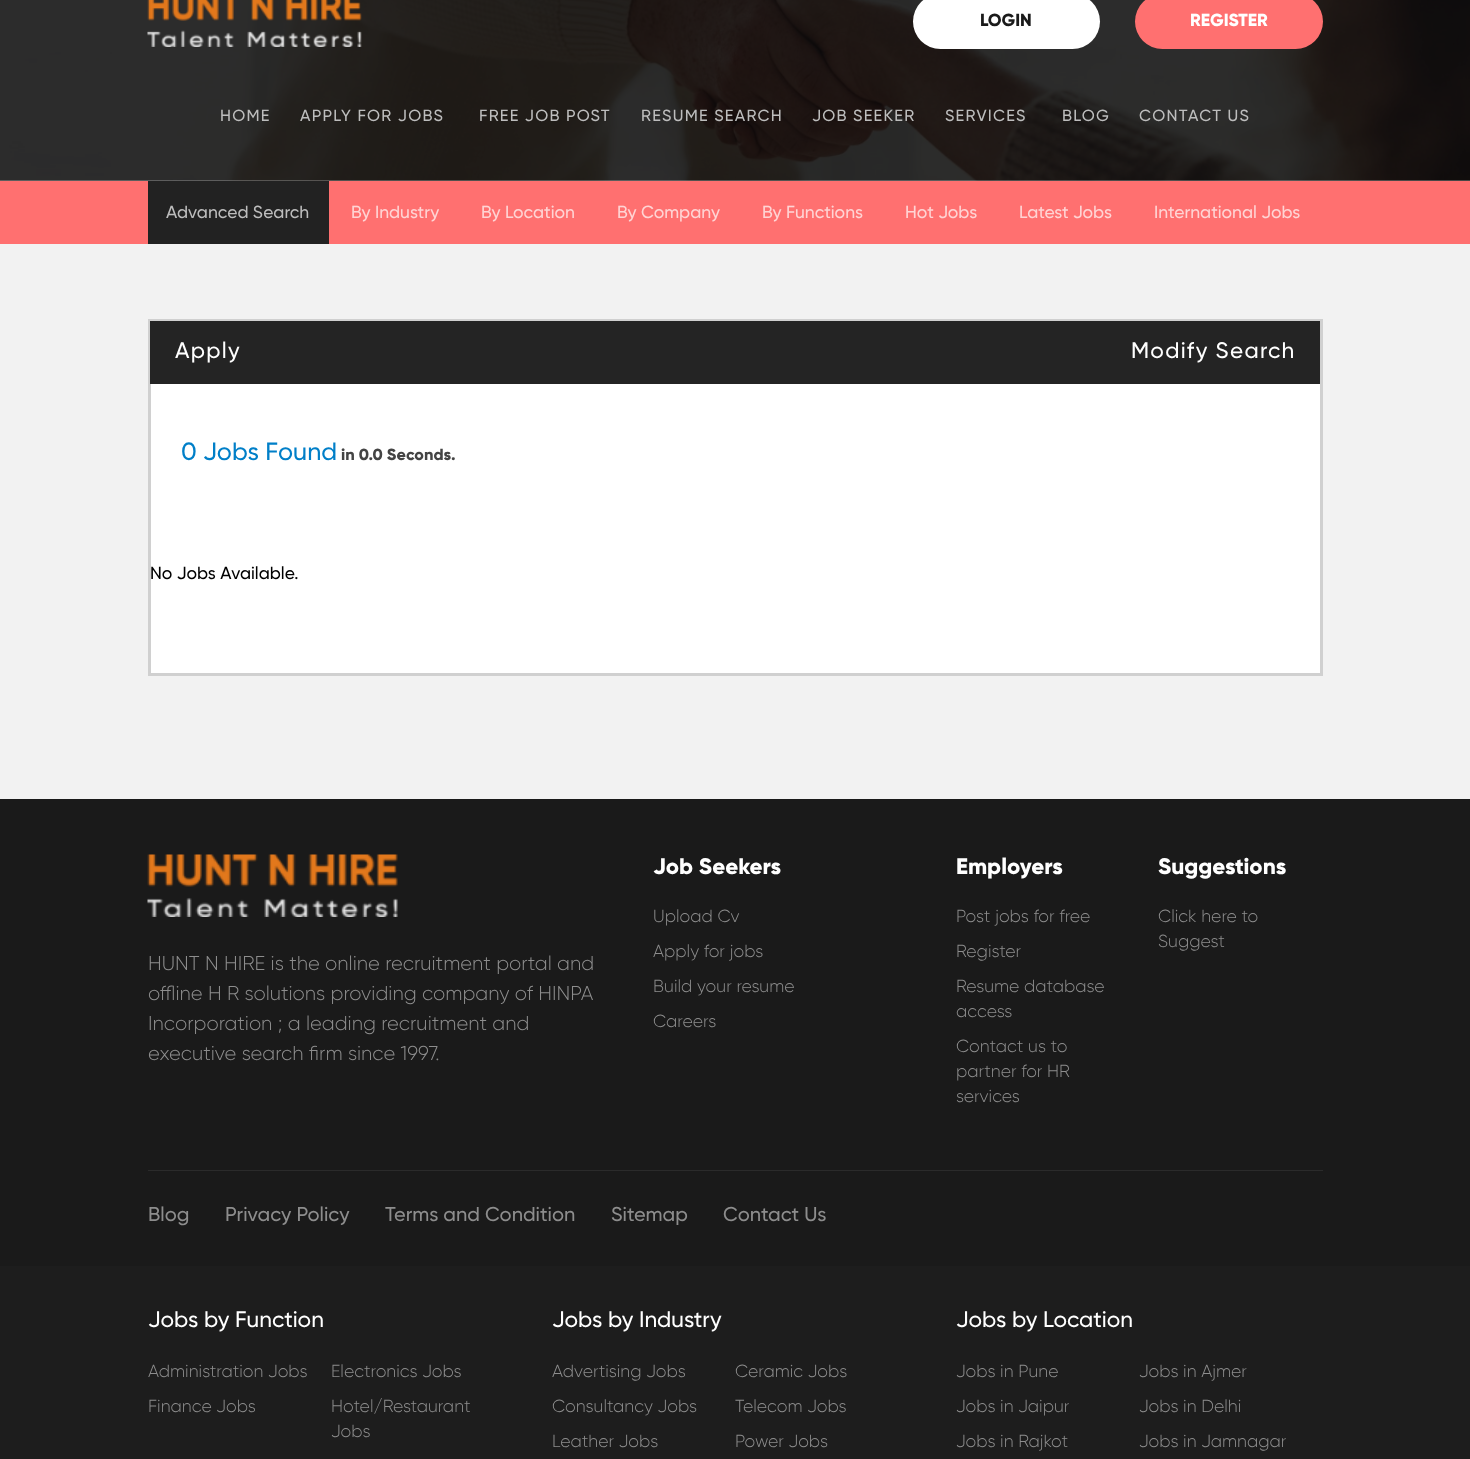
<!DOCTYPE html>
<meta charset="utf-8">
<style>body { margin: 0 } canvas { display: block }</style>
<canvas id="canvas" width="1470" height="1459"></canvas>
<img id="img1" src="img_01.png" hidden>
<img id="img2" src="img_02.png" hidden>
<img id="img3" src="img_03.png" hidden>
<script>
window.onload = function () {
	const canvas = document.getElementById("canvas");
	const ctx = canvas.getContext("2d");
	ctx.miterLimit = 4;
	ctx.fontKerning = "normal";
	function txt(s, x, y) {
		ctx.fillText(s, x, y);
	}
	function fill(x, y, w, h) {
		ctx.fillRect(x, y, w, h);
	}
	function round(x, y, w, h, r) {
		ctx.beginPath();
		ctx.roundRect(x, y, w, h, r);
		ctx.fill();
	}
	function img(id, x, y, w, h) {
		ctx.drawImage(document.getElementById(id), x, y, w, h);
	}

	ctx.fillStyle = "#F2F2F2";
	fill(0, 0, 1470, 1459);
	img("img1", 0, 0, 1470, 181);
	img("img2", 147, 0, 215, 47);
	ctx.fillStyle = "#FFFFFF";
	round(913, -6, 187, 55, 27.5);
	ctx.fillStyle = "#FF7070";
	round(1135, -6, 188, 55, 27.5);
	fill(0, 181, 1470, 63);
	ctx.fillStyle = "#222222";
	fill(148, 181, 181, 63);
	ctx.fillStyle = "#FFFFFF";
	fill(151, 384, 1169, 289);
	ctx.strokeStyle = "#D0D0D0";
	ctx.lineWidth = 3;
	ctx.strokeRect(149.5, 320.5, 1172, 354);
	ctx.fillStyle = "#242424";
	fill(150, 321, 1170, 63);
	ctx.fillStyle = "#1A1A1A";
	fill(0, 799, 1470, 467);
	ctx.fillStyle = "#2B2B2B";
	fill(148, 1170, 1175, 1);
	img("img3", 147, 854, 251, 63);
	ctx.fillStyle = "#1D1D1D";
	fill(0, 1266, 1470, 193);
	ctx.font = "800 17.5px Gilroy";
	ctx.fillStyle = "#1A1A1A";
	txt("LOGIN", 980, 26);
	ctx.fillStyle = "#FFFFFF";
	txt("REGISTER", 1190, 26);
	ctx.letterSpacing = "1.25px";
	ctx.font = "500 16.25px Gilroy";
	ctx.fillStyle = "#BDBDBD";
	txt("HOME", 220, 121);
	txt("APPLY FOR JOBS", 300, 121);
	txt("FREE JOB POST", 479, 121);
	txt("RESUME SEARCH", 641, 121);
	txt("JOB SEEKER", 812, 121);
	txt("SERVICES", 945, 121);
	txt("BLOG", 1062, 121);
	txt("CONTACT US", 1139, 121);
	ctx.letterSpacing = "0px";
	ctx.font = "500 17.5px Gilroy";
	txt("Advanced Search", 166, 218);
	ctx.fillStyle = "#FFD4D4";
	txt("By Industry", 351, 218);
	txt("By Location", 481, 218);
	txt("By Company", 617, 218);
	txt("By Functions", 762, 218);
	txt("Hot Jobs", 905, 218);
	txt("Latest Jobs", 1019, 218);
	txt("International Jobs", 1154, 218);
	ctx.letterSpacing = "1.25px";
	ctx.font = "500 22.5px Gilroy";
	ctx.fillStyle = "#FFFFFF";
	txt("Apply", 175, 358);
	txt("Modify Search", 1131, 358);
	ctx.letterSpacing = "0px";
	ctx.font = "500 25px Gilroy";
	ctx.fillStyle = "#007FC8";
	txt("0 Jobs Found", 181, 460);
	ctx.font = "800 16.25px Gilroy";
	ctx.fillStyle = "#444444";
	txt("in 0.0 Seconds.", 341, 460);
	ctx.font = "500 17.5px Gilroy";
	ctx.fillStyle = "#000000";
	txt("No Jobs Available.", 150, 579);
	ctx.font = "800 22.5px Gilroy";
	ctx.fillStyle = "#FFFFFF";
	txt("Job Seekers", 653, 874);
	ctx.font = "300 17.5px Gilroy";
	ctx.fillStyle = "#8D8D8D";
	txt("Upload Cv", 653, 922);
	txt("Apply for jobs", 653, 957);
	txt("Build your resume", 653, 992);
	txt("Careers", 653, 1027);
	ctx.font = "800 22.5px Gilroy";
	ctx.fillStyle = "#FFFFFF";
	txt("Employers", 956, 874);
	ctx.font = "300 17.5px Gilroy";
	ctx.fillStyle = "#8D8D8D";
	txt("Post jobs for free", 956, 922);
	txt("Register", 956, 957);
	txt("Resume database", 956, 992);
	txt("access", 956, 1017);
	txt("Contact us to", 956, 1052);
	txt("partner for HR", 956, 1077);
	txt("services", 956, 1102);
	ctx.font = "800 22.5px Gilroy";
	ctx.fillStyle = "#FFFFFF";
	txt("Suggestions", 1158, 874);
	ctx.font = "300 17.5px Gilroy";
	ctx.fillStyle = "#8D8D8D";
	txt("Click here to", 1158, 922);
	txt("Suggest", 1158, 947);
	ctx.font = "300 20px Gilroy";
	txt("HUNT N HIRE is the online recruitment portal and", 148, 970);
	txt("offline H R solutions providing company of HINPA", 148, 1000);
	txt("Incorporation ; a leading recruitment and", 148, 1030);
	txt("executive search firm since 1997.", 148, 1060);
	ctx.font = "500 20px Gilroy";
	txt("Blog", 148, 1221);
	txt("Privacy Policy", 225, 1221);
	txt("Terms and Condition", 385, 1221);
	txt("Sitemap", 611, 1221);
	txt("Contact Us", 723, 1221);
	ctx.font = "500 22.5px Gilroy";
	ctx.fillStyle = "#FFFFFF";
	txt("Jobs by Function", 148, 1327);
	ctx.font = "300 17.5px Gilroy";
	ctx.fillStyle = "#8D8D8D";
	txt("Administration Jobs", 148, 1377);
	txt("Electronics Jobs", 331, 1377);
	txt("Finance Jobs", 148, 1412);
	txt("Hotel/Restaurant", 331, 1412);
	txt("Jobs", 331, 1437);
	ctx.font = "500 22.5px Gilroy";
	ctx.fillStyle = "#FFFFFF";
	txt("Jobs by Industry", 552, 1327);
	ctx.font = "300 17.5px Gilroy";
	ctx.fillStyle = "#8D8D8D";
	txt("Advertising Jobs", 552, 1377);
	txt("Ceramic Jobs", 735, 1377);
	txt("Consultancy Jobs", 552, 1412);
	txt("Telecom Jobs", 735, 1412);
	txt("Leather Jobs", 552, 1447);
	txt("Power Jobs", 735, 1447);
	ctx.font = "500 22.5px Gilroy";
	ctx.fillStyle = "#FFFFFF";
	txt("Jobs by Location", 956, 1327);
	ctx.font = "300 17.5px Gilroy";
	ctx.fillStyle = "#8D8D8D";
	txt("Jobs in Pune", 956, 1377);
	txt("Jobs in Ajmer", 1139, 1377);
	txt("Jobs in Jaipur", 956, 1412);
	txt("Jobs in Delhi", 1139, 1412);
	txt("Jobs in Rajkot", 956, 1447);
	txt("Jobs in Jamnagar", 1139, 1447);
};
</script>
